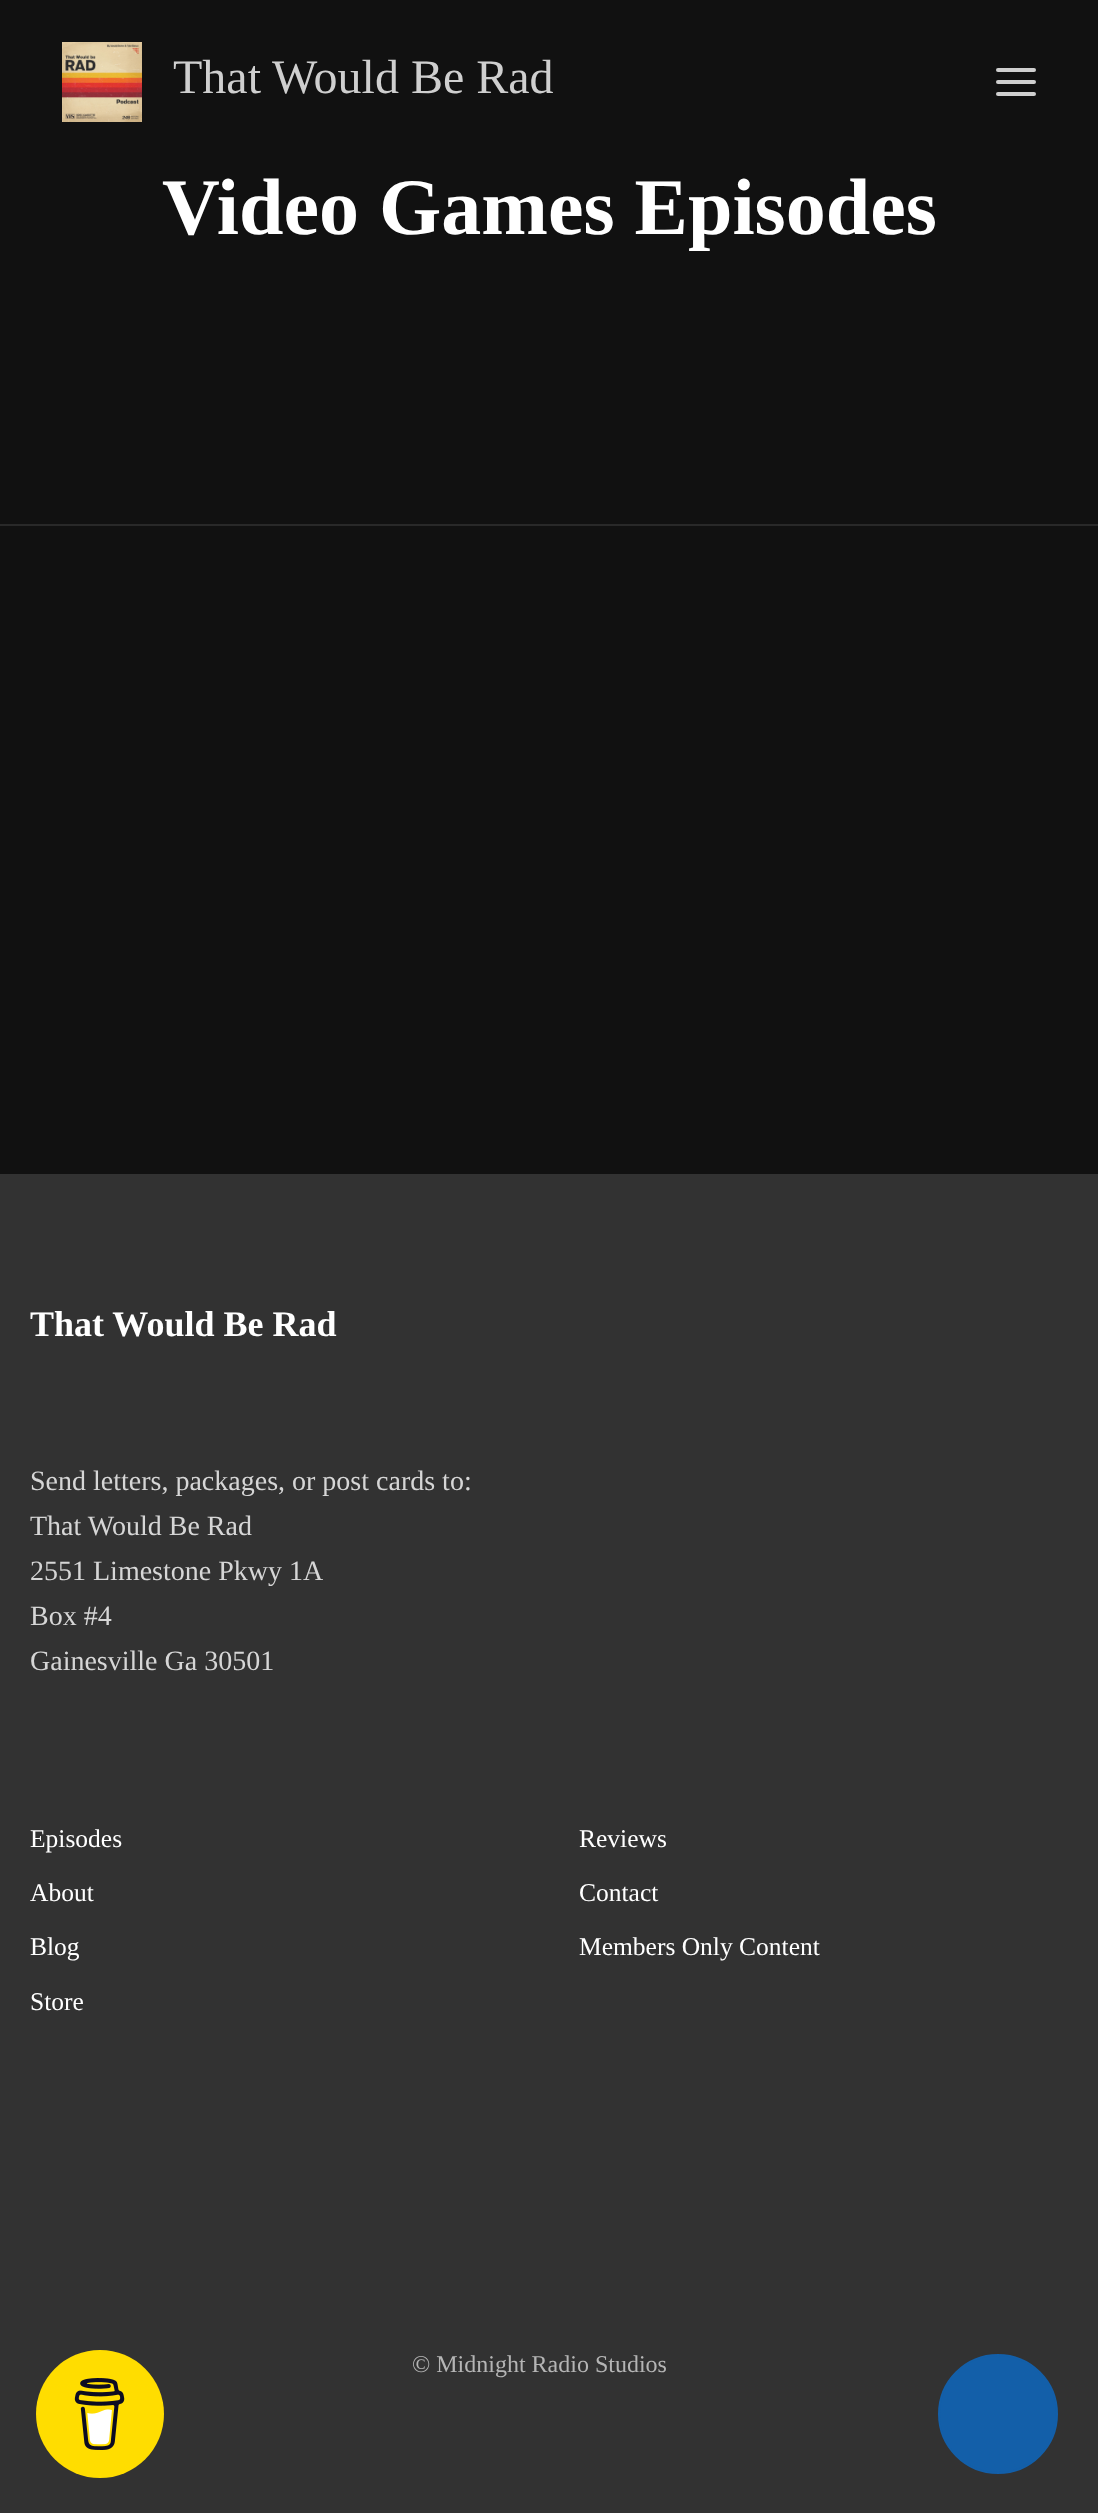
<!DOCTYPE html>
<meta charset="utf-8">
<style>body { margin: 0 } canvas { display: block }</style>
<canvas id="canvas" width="1098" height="2513"></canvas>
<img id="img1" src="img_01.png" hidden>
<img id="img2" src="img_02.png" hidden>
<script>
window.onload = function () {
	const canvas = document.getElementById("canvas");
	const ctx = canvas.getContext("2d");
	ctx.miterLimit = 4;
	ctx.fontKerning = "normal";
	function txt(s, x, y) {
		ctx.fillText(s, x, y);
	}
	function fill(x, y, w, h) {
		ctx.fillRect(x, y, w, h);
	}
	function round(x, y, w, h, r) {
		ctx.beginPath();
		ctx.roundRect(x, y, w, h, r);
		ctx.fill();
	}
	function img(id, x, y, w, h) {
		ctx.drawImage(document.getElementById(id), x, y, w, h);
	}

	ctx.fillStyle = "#323232";
	fill(0, 0, 1098, 2513);
	ctx.fillStyle = "#111111";
	fill(0, 0, 1098, 1174);
	img("img1", 62, 42, 80, 80);
	ctx.fillStyle = "#CFCFCF";
	round(996, 68, 40, 4, 2);
	round(996, 80, 40, 4, 2);
	round(996, 92, 40, 4, 2);
	ctx.fillStyle = "#292929";
	fill(0, 524, 1098, 2);
	ctx.fillStyle = "#FFDD00";
	ctx.beginPath();
	ctx.arc(100, 2414, 64, 0, Math.PI * 2);
	ctx.fill();
	img("img2", 74, 2378, 51, 72);
	ctx.fillStyle = "#135FA9";
	ctx.beginPath();
	ctx.arc(998, 2414, 59, 0, Math.PI * 2);
	ctx.fill();
	ctx.strokeStyle = "#135FA9";
	ctx.lineWidth = 2;
	ctx.stroke();
	ctx.font = "48px Liberation Serif";
	ctx.fillStyle = "#CFCFCF";
	txt("That Would Be Rad", 173, 93);
	ctx.font = "bold 80px Liberation Serif";
	ctx.fillStyle = "#FFFFFF";
	txt("Video Games Episodes", 162, 234);
	ctx.font = "bold 36px Liberation Serif";
	txt("That Would Be Rad", 30, 1336);
	ctx.font = "28px Liberation Serif";
	ctx.fillStyle = "#D6D6D6";
	txt("Send letters, packages, or post cards to:", 30, 1490);
	txt("That Would Be Rad", 30, 1535);
	txt("2551 Limestone Pkwy 1A", 30, 1580);
	txt("Box #4", 30, 1625);
	txt("Gainesville Ga 30501", 30, 1670);
	ctx.font = "25.5px Liberation Serif";
	ctx.fillStyle = "#FFFFFF";
	txt("Episodes", 30, 1847);
	txt("About", 30, 1901);
	txt("Blog", 30, 1955);
	txt("Store", 30, 2010);
	txt("Reviews", 579, 1847);
	txt("Contact", 579, 1901);
	txt("Members Only Content", 579, 1955);
	ctx.font = "24px Liberation Serif";
	ctx.fillStyle = "#B5B5B5";
	txt("© Midnight Radio Studios", 412, 2372);
};
</script>
